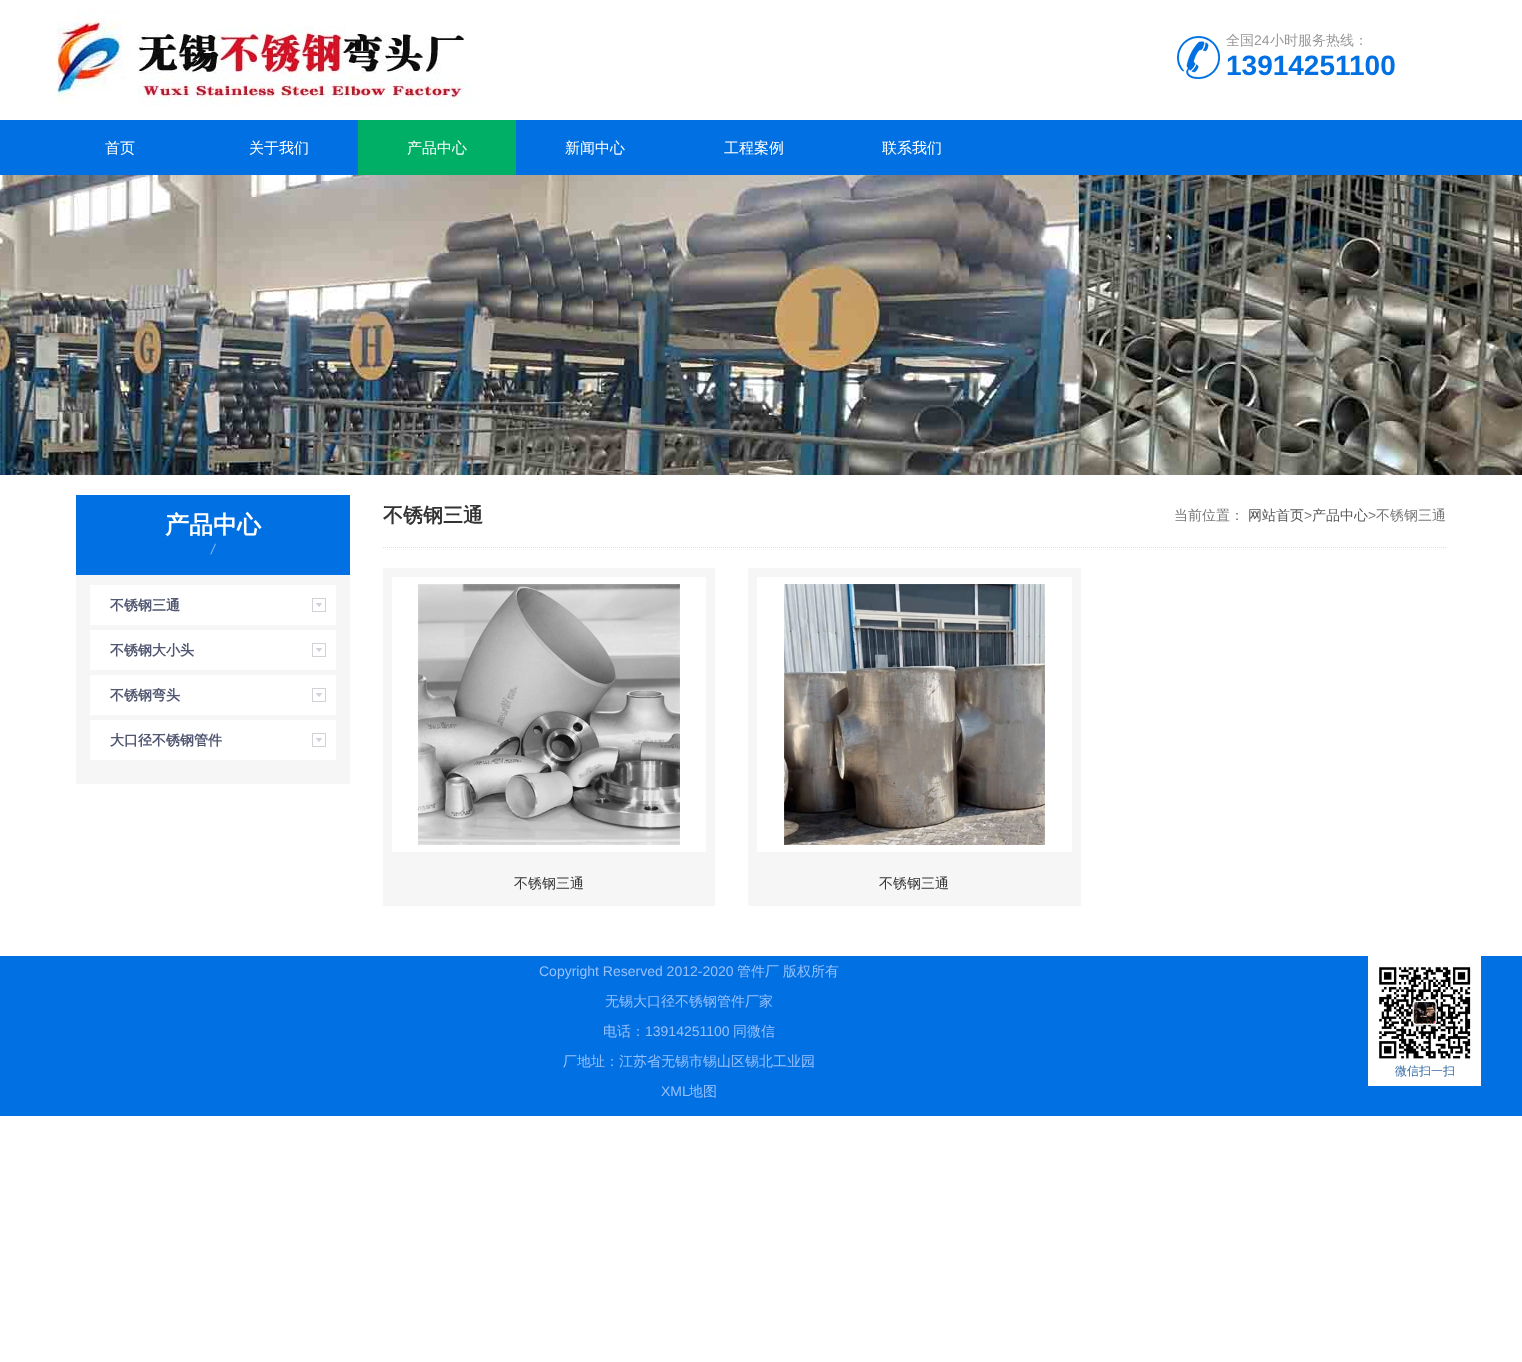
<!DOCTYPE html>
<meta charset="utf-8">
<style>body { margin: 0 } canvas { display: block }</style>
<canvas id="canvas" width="1522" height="1362"></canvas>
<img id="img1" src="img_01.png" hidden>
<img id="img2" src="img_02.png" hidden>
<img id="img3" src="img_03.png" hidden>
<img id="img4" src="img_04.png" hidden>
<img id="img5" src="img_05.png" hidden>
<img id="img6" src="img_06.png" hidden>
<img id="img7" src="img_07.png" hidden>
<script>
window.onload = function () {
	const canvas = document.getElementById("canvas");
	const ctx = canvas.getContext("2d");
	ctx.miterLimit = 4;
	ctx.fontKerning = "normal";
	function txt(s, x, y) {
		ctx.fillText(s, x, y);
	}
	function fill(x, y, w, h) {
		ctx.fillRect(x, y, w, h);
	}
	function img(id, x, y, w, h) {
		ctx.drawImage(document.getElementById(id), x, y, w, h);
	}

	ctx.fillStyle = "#FFFFFF";
	fill(0, 0, 1522, 1362);
	img("img1", 56, 10, 416, 96);
	img("img2", 1177, 36, 43, 43);
	ctx.fillStyle = "#0170E2";
	fill(0, 120, 1522, 55);
	ctx.fillStyle = "#00AF66";
	fill(358, 120, 158, 55);
	img("img3", 0, 175, 1522, 300);
	ctx.fillStyle = "#0170E2";
	fill(76, 495, 274, 80);
	ctx.fillStyle = "#F6F6F6";
	fill(76, 575, 274, 209);
	ctx.fillStyle = "#FFFFFF";
	fill(90, 585, 246, 40);
	img("img4", 312, 598, 14, 14);
	fill(90, 630, 246, 40);
	img("img4", 312, 643, 14, 14);
	fill(90, 675, 246, 40);
	img("img4", 312, 688, 14, 14);
	fill(90, 720, 246, 40);
	img("img4", 312, 733, 14, 14);
	ctx.beginPath();
	ctx.moveTo(383, 547.5);
	ctx.lineTo(1446, 547.5);
	ctx.strokeStyle = "#DEDEDE";
	ctx.setLineDash([1, 1]);
	ctx.stroke();
	ctx.fillStyle = "#F6F6F6";
	fill(383, 568, 332, 338);
	ctx.fillStyle = "#FFFFFF";
	fill(392, 577, 314, 275);
	img("img5", 418, 584, 262, 261);
	ctx.fillStyle = "#F6F6F6";
	fill(748, 568, 333, 338);
	ctx.fillStyle = "#FFFFFF";
	fill(757, 577, 315, 275);
	img("img6", 784, 584, 261, 261);
	ctx.fillStyle = "#0170E2";
	fill(0, 956, 1522, 160);
	ctx.fillStyle = "#FFFFFF";
	fill(1368, 956, 113, 130);
	img("img7", 1379, 967, 92, 92);
	ctx.font = "500 14px WenQuanYi Zen Hei";
	ctx.fillStyle = "#999999";
	txt("全国", 1226, 45);
	ctx.font = "14px Liberation Sans";
	txt("24", 1254, 45);
	ctx.font = "500 14px WenQuanYi Zen Hei";
	txt("小时服务热线：", 1270, 45);
	ctx.font = "bold 28px Liberation Sans";
	ctx.fillStyle = "#0170E2";
	txt("13914251100", 1226, 75);
	ctx.font = "500 15px WenQuanYi Zen Hei";
	ctx.fillStyle = "#FFFFFF";
	txt("首页", 105, 153);
	txt("关于我们", 249, 153);
	txt("产品中心", 407, 153);
	txt("新闻中心", 565, 153);
	txt("工程案例", 724, 153);
	txt("联系我们", 882, 153);
	ctx.font = "bold 24px WenQuanYi Zen Hei";
	txt("产品中心", 165, 533);
	ctx.font = "italic 14px Liberation Sans";
	ctx.fillStyle = "#80B8F1";
	txt("/", 211, 554);
	ctx.font = "bold 14px WenQuanYi Zen Hei";
	ctx.fillStyle = "#515671";
	txt("不锈钢三通", 110, 610);
	txt("不锈钢大小头", 110, 655);
	txt("不锈钢弯头", 110, 700);
	txt("大口径不锈钢管件", 110, 745);
	ctx.font = "bold 20px WenQuanYi Zen Hei";
	ctx.fillStyle = "#333333";
	txt("不锈钢三通", 383, 522);
	ctx.font = "500 14px WenQuanYi Zen Hei";
	ctx.fillStyle = "#777777";
	txt("当前位置：", 1174, 520);
	ctx.fillStyle = "#555555";
	txt("网站首页", 1248, 520);
	ctx.font = "14px Liberation Sans";
	ctx.fillStyle = "#777777";
	txt(">", 1304, 520);
	ctx.font = "500 14px WenQuanYi Zen Hei";
	ctx.fillStyle = "#555555";
	txt("产品中心", 1312, 520);
	ctx.font = "14px Liberation Sans";
	ctx.fillStyle = "#777777";
	txt(">", 1368, 520);
	ctx.font = "500 14px WenQuanYi Zen Hei";
	txt("不锈钢三通", 1376, 520);
	ctx.fillStyle = "#333333";
	txt("不锈钢三通", 514, 888);
	txt("不锈钢三通", 879, 888);
	ctx.font = "14px Liberation Sans";
	ctx.fillStyle = "#97C1FF";
	txt("Copyright Reserved 2012-2020", 539, 976);
	ctx.font = "500 14px WenQuanYi Zen Hei";
	txt("管件厂", 737, 976);
	txt("版权所有", 783, 976);
	txt("无锡大口径不锈钢管件厂家", 605, 1006);
	txt("电话：", 603, 1036);
	ctx.font = "14px Liberation Sans";
	txt("13914251100", 645, 1036);
	ctx.font = "500 14px WenQuanYi Zen Hei";
	txt("同微信", 733, 1036);
	txt("厂地址：江苏省无锡市锡山区锡北工业园", 563, 1066);
	ctx.font = "14px Liberation Sans";
	txt("XML", 661, 1096);
	ctx.font = "500 14px WenQuanYi Zen Hei";
	txt("地图", 689, 1096);
	ctx.font = "500 12px WenQuanYi Zen Hei";
	ctx.fillStyle = "#356CA5";
	txt("微信扫一扫", 1395, 1075);
};
</script>
